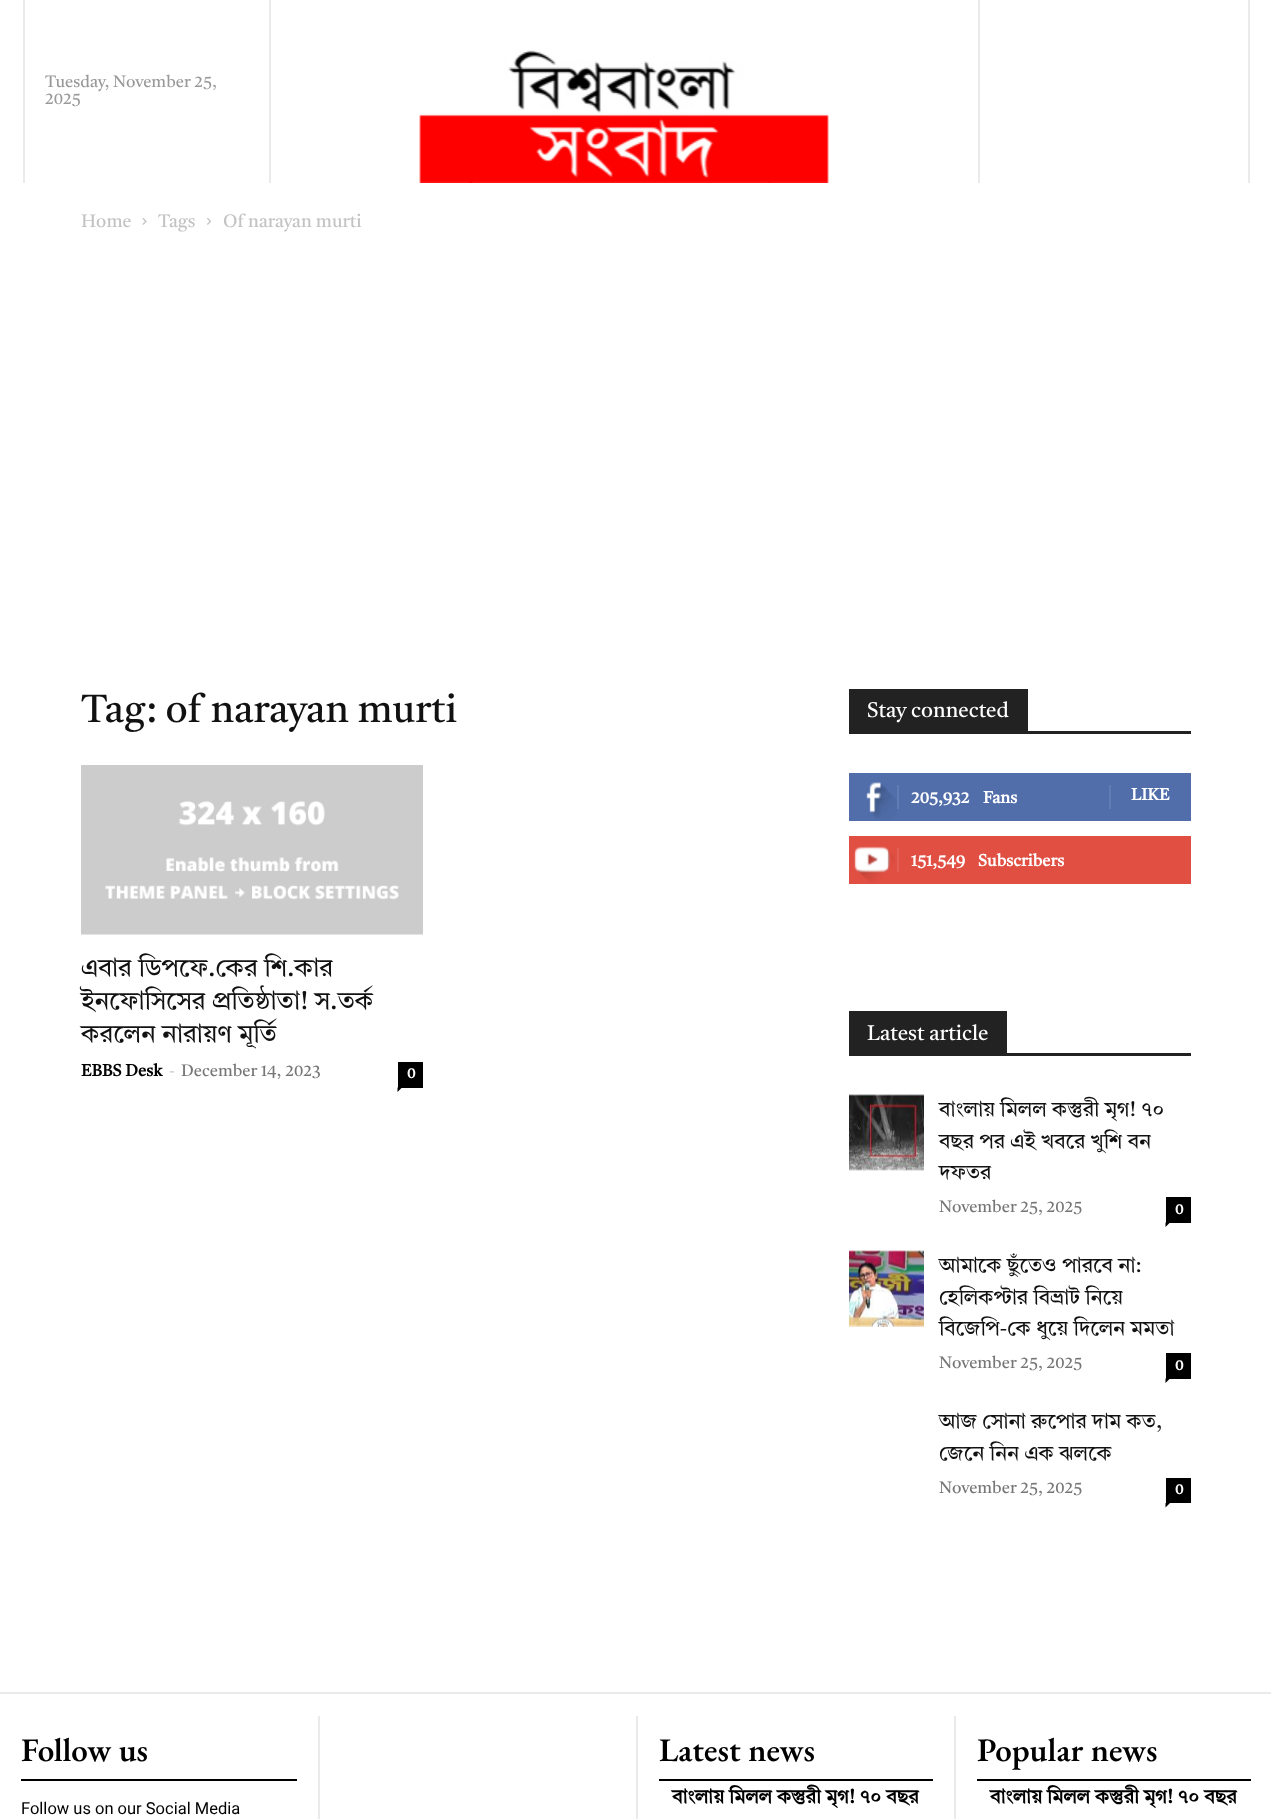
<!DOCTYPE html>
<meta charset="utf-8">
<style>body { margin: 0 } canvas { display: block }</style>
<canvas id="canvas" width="1271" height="1819"></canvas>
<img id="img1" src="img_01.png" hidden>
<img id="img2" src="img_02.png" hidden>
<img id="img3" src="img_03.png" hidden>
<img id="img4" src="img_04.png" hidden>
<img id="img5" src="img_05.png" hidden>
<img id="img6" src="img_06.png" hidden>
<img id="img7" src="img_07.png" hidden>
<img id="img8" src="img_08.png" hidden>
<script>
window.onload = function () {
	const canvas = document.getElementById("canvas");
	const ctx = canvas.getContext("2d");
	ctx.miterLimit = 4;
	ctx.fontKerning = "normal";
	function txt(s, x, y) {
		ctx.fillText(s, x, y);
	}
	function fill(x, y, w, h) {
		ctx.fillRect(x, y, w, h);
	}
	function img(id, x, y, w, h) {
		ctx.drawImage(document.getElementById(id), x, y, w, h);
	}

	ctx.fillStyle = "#FFFFFF";
	fill(0, 0, 1271, 1819);
	ctx.fillStyle = "#EAEAEA";
	fill(23, 0, 2, 183);
	fill(978, 0, 2, 183);
	fill(269, 0, 2, 183);
	img("img1", 419, 50, 410, 133);
	fill(1248, 0, 2, 183);
	img("img2", 142, 218, 5, 7);
	img("img3", 207, 218, 4, 7);
	img("img4", 81, 765, 342, 170);
	ctx.fillStyle = "#000000";
	fill(398, 1062, 25, 26);
	ctx.beginPath();
	ctx.moveTo(397.5, 1087.5);
	ctx.lineTo(402, 1087.5);
	ctx.lineTo(397.5, 1092);
	ctx.closePath();
	ctx.fill();
	ctx.fillStyle = "#222222";
	fill(849, 731, 342, 3);
	fill(849, 689, 179, 42);
	ctx.fillStyle = "#516EAB";
	fill(849, 773, 342, 48);
	img("img5", 866, 782, 31, 38);
	ctx.fillStyle = "#627DB3";
	fill(897, 785, 2, 24);
	fill(1109, 785, 2, 24);
	ctx.fillStyle = "#E14E42";
	fill(849, 836, 342, 48);
	img("img6", 854, 846, 41, 37);
	ctx.fillStyle = "#E46055";
	fill(897, 848, 2, 24);
	ctx.fillStyle = "#222222";
	fill(849, 1053, 342, 3);
	fill(849, 1011, 158, 42);
	img("img7", 849, 1094, 75, 77);
	ctx.fillStyle = "#000000";
	fill(1166, 1197, 25, 26);
	ctx.beginPath();
	ctx.moveTo(1165.5, 1222.5);
	ctx.lineTo(1170, 1222.5);
	ctx.lineTo(1165.5, 1227);
	ctx.closePath();
	ctx.fill();
	img("img8", 849, 1250, 75, 77);
	fill(1166, 1353, 25, 26);
	ctx.beginPath();
	ctx.moveTo(1165.5, 1378.5);
	ctx.lineTo(1170, 1378.5);
	ctx.lineTo(1165.5, 1383);
	ctx.closePath();
	ctx.fill();
	fill(1166, 1478, 25, 25);
	ctx.beginPath();
	ctx.moveTo(1165.5, 1503);
	ctx.lineTo(1170, 1503);
	ctx.lineTo(1165.5, 1507.5);
	ctx.closePath();
	ctx.fill();
	ctx.fillStyle = "#EAEAEA";
	fill(0, 1692, 1271, 2);
	ctx.fillStyle = "#000000";
	fill(21, 1779, 276, 2);
	ctx.fillStyle = "#EAEAEA";
	fill(318, 1716, 2, 103);
	fill(636, 1716, 2, 103);
	ctx.fillStyle = "#000000";
	fill(659, 1779, 274, 2);
	ctx.fillStyle = "#EAEAEA";
	fill(954, 1716, 2, 103);
	ctx.fillStyle = "#000000";
	fill(977, 1779, 274, 2);
	ctx.font = "16.5px Tiro Bangla";
	ctx.fillStyle = "#999999";
	txt("Tuesday, November 25,", 45, 87);
	txt("2025", 45, 104);
	ctx.font = "18px Tiro Bangla";
	ctx.fillStyle = "#C3C3C3";
	txt("Home", 81, 227);
	txt("Tags", 158, 227);
	txt("Of narayan murti", 223, 227);
	ctx.font = "39px Tiro Bangla";
	ctx.fillStyle = "#111111";
	txt("Tag: of narayan murti", 81, 722);
	ctx.font = "25.5px Tiro Bangla";
	txt("এবার ডিপফে.কের শি.কার", 81, 976);
	txt("ইনফোসিসের প্রতিষ্ঠাতা! স.তর্ক", 81, 1009);
	txt("করলেন নারায়ণ মূর্তি", 81, 1042);
	ctx.font = "bold 16.5px Tiro Bangla";
	ctx.fillStyle = "#000000";
	txt("EBBS Desk", 81, 1076);
	ctx.font = "16.5px Tiro Bangla";
	ctx.fillStyle = "#CCCCCC";
	txt("-", 169, 1076);
	ctx.fillStyle = "#767676";
	txt("December 14, 2023", 181, 1076);
	ctx.font = "bold 15px Tiro Bangla";
	ctx.fillStyle = "#FFFFFF";
	txt("0", 407, 1078);
	ctx.font = "21px Tiro Bangla";
	txt("Stay connected", 867, 717);
	ctx.font = "bold 16.5px Tiro Bangla";
	txt("205,932", 911, 803);
	txt("Fans", 983, 803);
	txt("LIKE", 1131, 800);
	txt("151,549", 911, 866);
	txt("Subscribers", 978, 866);
	ctx.font = "21px Tiro Bangla";
	txt("Latest article", 867, 1040);
	ctx.fillStyle = "#111111";
	txt("বাংলায় মিলল কস্তুরী মৃগ! ৭০", 939, 1116);
	txt("বছর পর এই খবরে খুশি বন", 939, 1148);
	txt("দফতর", 939, 1179);
	ctx.font = "16.5px Tiro Bangla";
	ctx.fillStyle = "#767676";
	txt("November 25, 2025", 939, 1212);
	ctx.font = "bold 15px Tiro Bangla";
	ctx.fillStyle = "#FFFFFF";
	txt("0", 1175, 1214);
	ctx.font = "21px Tiro Bangla";
	ctx.fillStyle = "#111111";
	txt("আমাকে ছুঁতেও পারবে না:", 939, 1272);
	txt("হেলিকপ্টার বিভ্রাট নিয়ে", 939, 1304);
	txt("বিজেপি-কে ধুয়ে দিলেন মমতা", 939, 1335);
	ctx.font = "16.5px Tiro Bangla";
	ctx.fillStyle = "#767676";
	txt("November 25, 2025", 939, 1368);
	ctx.font = "bold 15px Tiro Bangla";
	ctx.fillStyle = "#FFFFFF";
	txt("0", 1175, 1370);
	ctx.font = "21px Tiro Bangla";
	ctx.fillStyle = "#111111";
	txt("আজ সোনা রুপোর দাম কত,", 939, 1428);
	txt("জেনে নিন এক ঝলকে", 939, 1460);
	ctx.font = "16.5px Tiro Bangla";
	ctx.fillStyle = "#767676";
	txt("November 25, 2025", 939, 1493);
	ctx.font = "bold 15px Tiro Bangla";
	ctx.fillStyle = "#FFFFFF";
	txt("0", 1175, 1494);
	ctx.font = "600 33px EB Garamond";
	ctx.fillStyle = "#000000";
	txt("Follow us", 21, 1761);
	ctx.font = "16.5px Roboto";
	txt("Follow us on our Social Media", 21, 1814);
	ctx.font = "600 33px EB Garamond";
	txt("Latest news", 659, 1761);
	ctx.font = "bold 19.5px Tiro Bangla";
	txt("বাংলায় মিলল কস্তুরী মৃগ! ৭০ বছর", 672, 1803);
	ctx.font = "600 33px EB Garamond";
	txt("Popular news", 977, 1761);
	ctx.font = "bold 19.5px Tiro Bangla";
	txt("বাংলায় মিলল কস্তুরী মৃগ! ৭০ বছর", 990, 1803);
};
</script>
